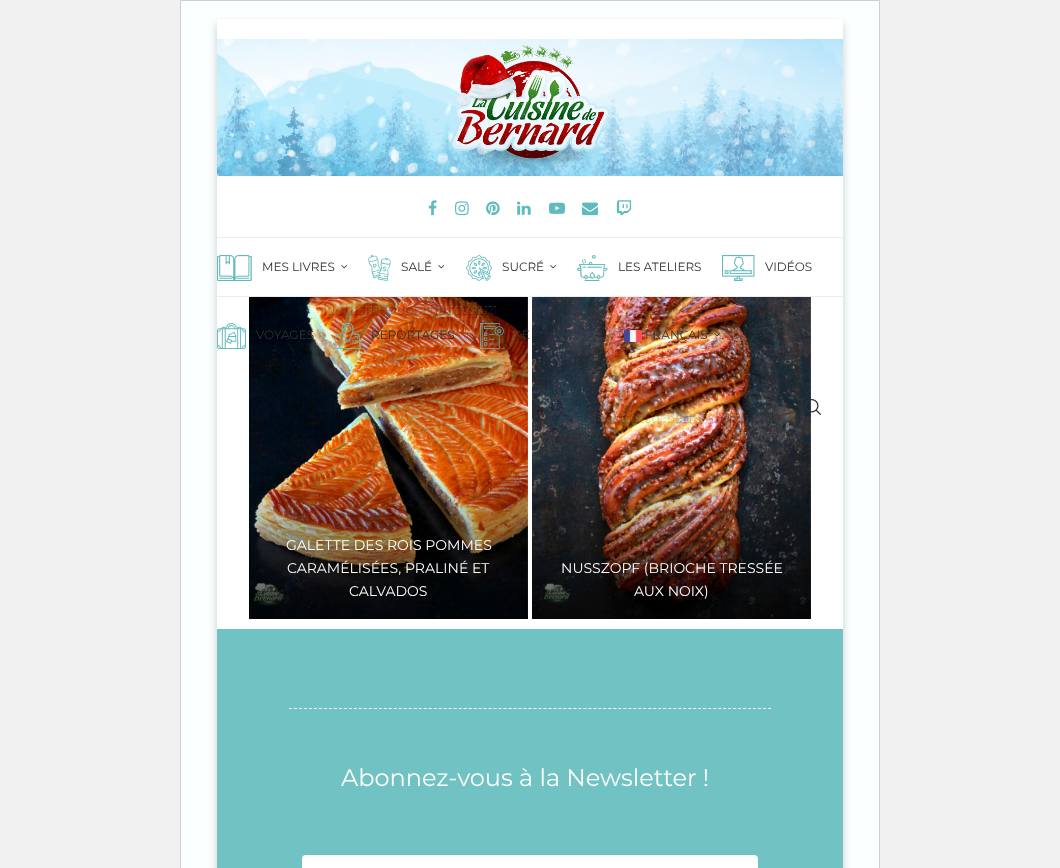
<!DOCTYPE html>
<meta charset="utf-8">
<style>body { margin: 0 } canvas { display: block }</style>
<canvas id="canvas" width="1060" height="868"></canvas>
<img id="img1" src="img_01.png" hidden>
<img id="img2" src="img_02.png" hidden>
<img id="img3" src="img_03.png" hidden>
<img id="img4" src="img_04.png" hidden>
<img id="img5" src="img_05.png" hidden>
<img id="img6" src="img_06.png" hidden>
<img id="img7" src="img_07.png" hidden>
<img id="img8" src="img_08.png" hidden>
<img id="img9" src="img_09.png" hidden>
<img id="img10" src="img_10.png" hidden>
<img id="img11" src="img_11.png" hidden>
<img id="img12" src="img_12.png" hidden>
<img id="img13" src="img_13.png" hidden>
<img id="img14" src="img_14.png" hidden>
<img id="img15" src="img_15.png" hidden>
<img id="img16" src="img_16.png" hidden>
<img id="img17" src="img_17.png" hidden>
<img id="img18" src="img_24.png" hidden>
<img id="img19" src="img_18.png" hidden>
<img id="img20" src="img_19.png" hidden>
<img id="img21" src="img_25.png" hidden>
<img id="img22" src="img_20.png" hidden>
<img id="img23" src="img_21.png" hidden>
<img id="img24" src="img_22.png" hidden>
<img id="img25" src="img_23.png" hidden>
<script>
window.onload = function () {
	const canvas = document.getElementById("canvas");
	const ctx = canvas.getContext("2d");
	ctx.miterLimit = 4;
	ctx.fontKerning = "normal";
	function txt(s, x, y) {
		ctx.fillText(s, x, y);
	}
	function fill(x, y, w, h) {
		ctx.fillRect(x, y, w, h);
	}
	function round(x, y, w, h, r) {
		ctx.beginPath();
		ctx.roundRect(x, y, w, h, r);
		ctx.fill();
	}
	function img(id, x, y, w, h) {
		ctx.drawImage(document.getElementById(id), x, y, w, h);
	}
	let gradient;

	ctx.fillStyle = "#F1F1F1";
	fill(0, 0, 1060, 868);
	ctx.fillStyle = "#FCFFFF";
	ctx.beginPath();
	ctx.rect(180.5, 0.5, 699, 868);
	ctx.fill();
	ctx.strokeStyle = "#CCD0D4";
	ctx.stroke();
	ctx.fillStyle = "rgba(0, 0, 0, 0.2)";
	ctx.filter = "blur(4px)";
	ctx.beginPath();
	ctx.rect(217, 24, 626, 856);
	ctx.fill();
	ctx.filter = "none";
	ctx.fillStyle = "#FFFFFF";
	fill(217, 19, 626, 610);
	img("img1", 217, 39, 626, 137);
	img("img2", 428, 200, 9, 16);
	img("img3", 455, 201, 14, 15);
	img("img4", 486, 201, 14, 15);
	img("img5", 517, 201, 14, 14);
	img("img6", 549, 202, 16, 12);
	img("img7", 582, 202, 16, 14);
	img("img8", 616, 200, 16, 16);
	ctx.fillStyle = "#ECECEC";
	fill(217, 237, 626, 1);
	fill(217, 296, 626, 1);
	img("img9", 217, 255, 35, 26);
	img("img10", 341, 265, 6, 4);
	img("img11", 368, 255, 23, 26);
	img("img12", 438, 265, 7, 4);
	img("img13", 466, 255, 26, 26);
	img("img14", 550, 265, 6, 4);
	img("img15", 577, 255, 31, 26);
	img("img16", 722, 255, 33, 26);
	img("img17", 217, 323, 29, 26);
	img("img18", 249, 297, 279, 322);
	img("img19", 334, 323, 27, 26);
	img("img20", 480, 323, 24, 26);
	img("img21", 532, 297, 279, 322);
	img("img22", 596, 333, 6, 3);
	img("img23", 624, 330, 18, 12);
	img("img24", 714, 333, 6, 4);
	img("img25", 805, 399, 16, 16);
	gradient = ctx.createLinearGradient(389, 241, 389, 619);
	gradient.addColorStop(0.6, "rgba(0, 0, 0, 0)");
	gradient.addColorStop(1, "rgba(0, 0, 0, 0.7)");
	ctx.fillStyle = gradient;
	fill(249, 472, 279, 147);
	gradient = ctx.createLinearGradient(672, 241, 672, 619);
	gradient.addColorStop(0.6, "rgba(0, 0, 0, 0)");
	gradient.addColorStop(1, "rgba(0, 0, 0, 0.7)");
	ctx.fillStyle = gradient;
	fill(532, 472, 279, 147);
	ctx.fillStyle = "#70C2C3";
	fill(217, 629, 626, 239);
	ctx.beginPath();
	ctx.moveTo(289, 708.5);
	ctx.lineTo(771, 708.5);
	ctx.strokeStyle = "#FFFFFF";
	ctx.setLineDash([3, 1.99]);
	ctx.stroke();
	ctx.fillStyle = "#FFFFFF";
	round(302, 855, 456, 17, 4);
	ctx.font = "12px Montserrat";
	ctx.fillStyle = "#313131";
	txt("MES LIVRES", 262, 271);
	txt("SALÉ", 401, 271);
	txt("SUCRÉ", 502, 271);
	txt("LES ATELIERS", 618, 271);
	txt("VIDÉOS", 765, 271);
	txt("VOYAGES", 256, 339);
	txt("REPORTAGES", 371, 339);
	txt("SÉ", 514, 339);
	txt("FRANÇAIS", 645, 339);
	ctx.font = "14px Montserrat";
	ctx.fillStyle = "#FFFFFF";
	txt("GALETTE DES ROIS POMMES", 286, 550);
	txt("CARAMÉLISÉES, PRALINÉ ET", 287, 573);
	txt("CALVADOS", 349, 596);
	txt("NUSSZOPF (BRIOCHE TRESSÉE", 561, 573);
	txt("AUX NOIX)", 634, 596);
	ctx.font = "24px Montserrat";
	txt("Abonnez-vous à la Newsletter !", 341, 786);
};
</script>
